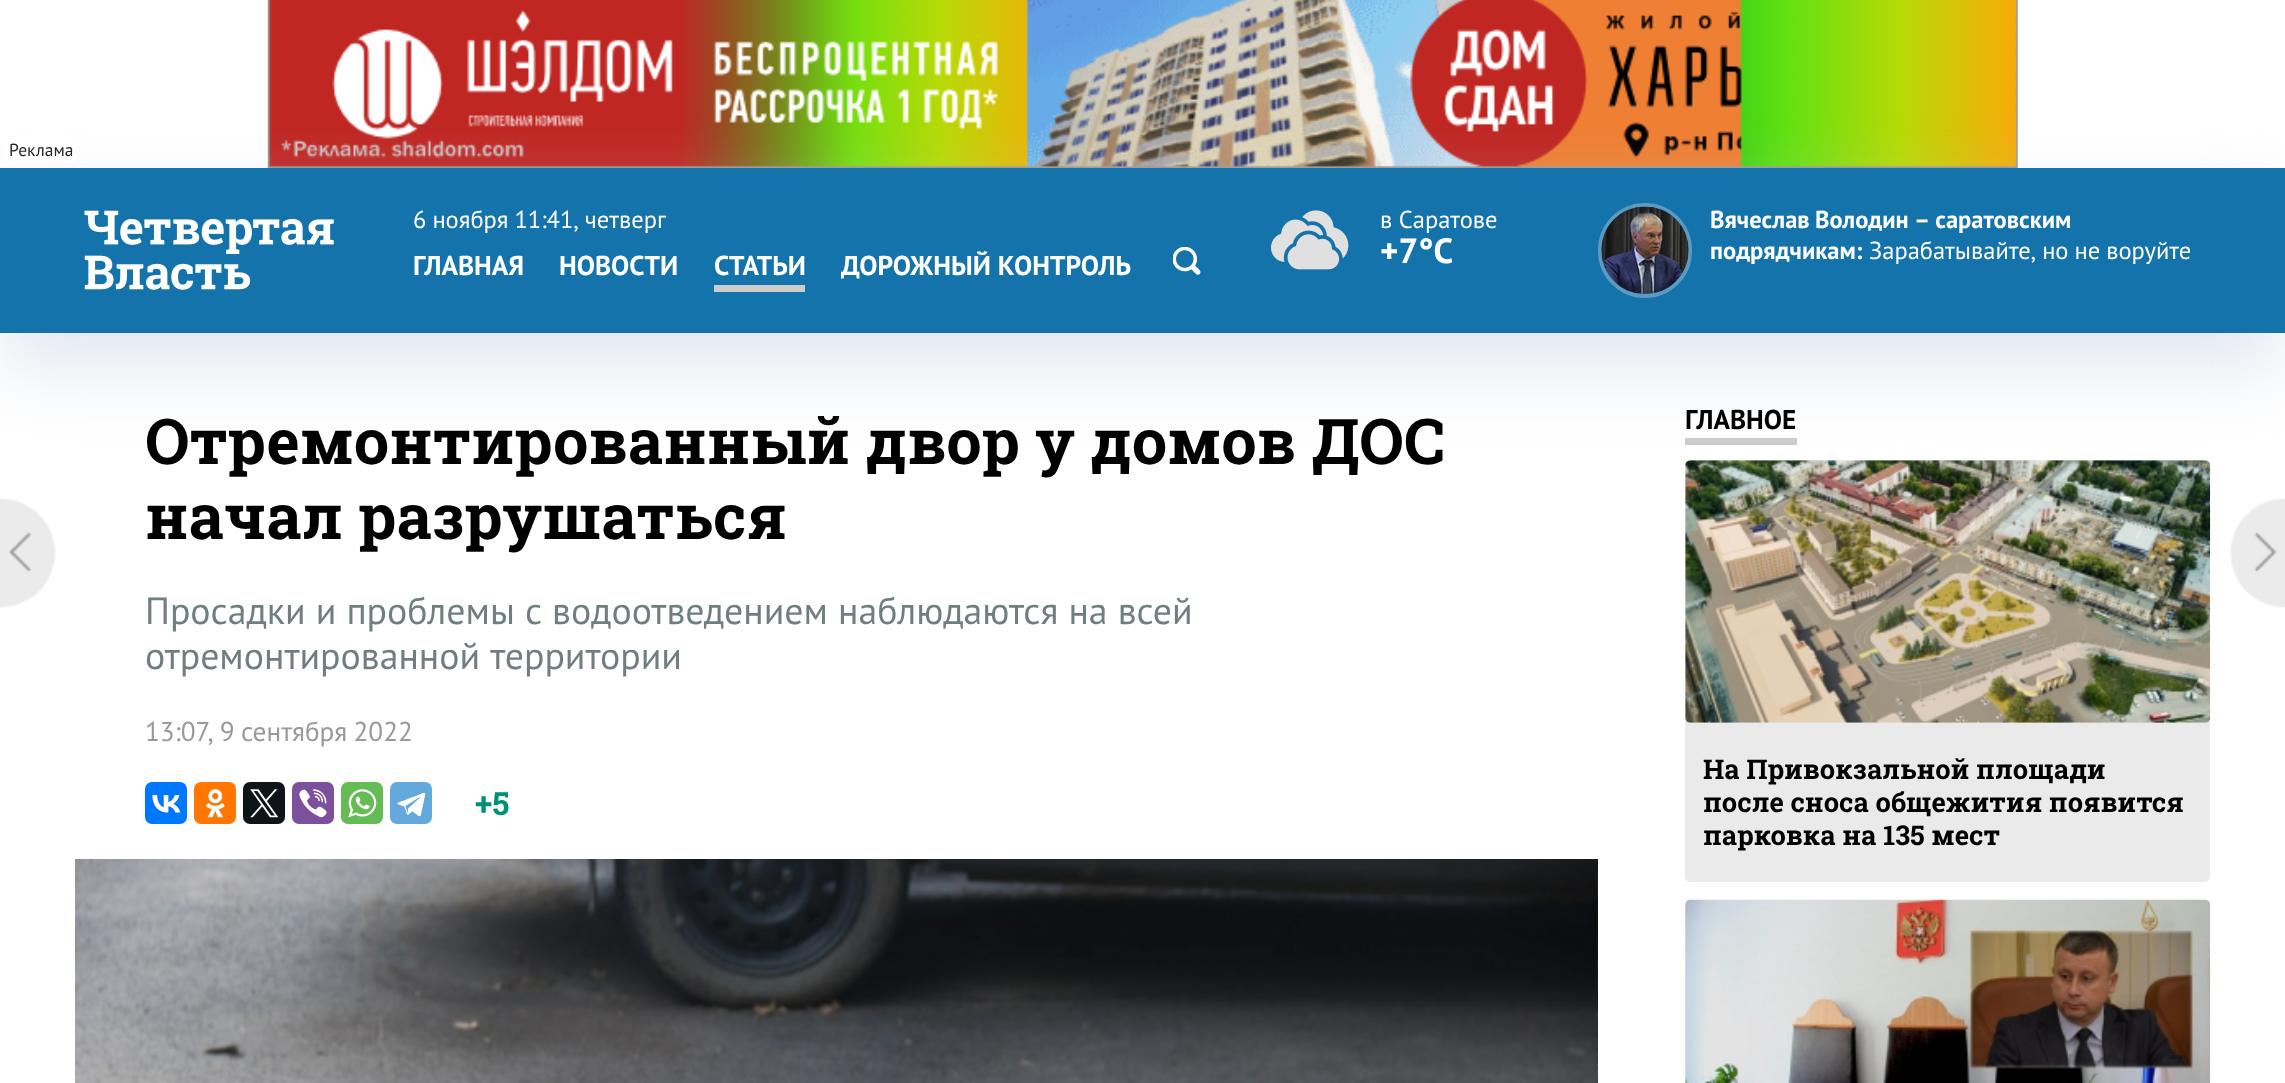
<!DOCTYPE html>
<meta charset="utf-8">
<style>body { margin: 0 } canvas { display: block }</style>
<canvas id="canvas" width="2285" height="1083"></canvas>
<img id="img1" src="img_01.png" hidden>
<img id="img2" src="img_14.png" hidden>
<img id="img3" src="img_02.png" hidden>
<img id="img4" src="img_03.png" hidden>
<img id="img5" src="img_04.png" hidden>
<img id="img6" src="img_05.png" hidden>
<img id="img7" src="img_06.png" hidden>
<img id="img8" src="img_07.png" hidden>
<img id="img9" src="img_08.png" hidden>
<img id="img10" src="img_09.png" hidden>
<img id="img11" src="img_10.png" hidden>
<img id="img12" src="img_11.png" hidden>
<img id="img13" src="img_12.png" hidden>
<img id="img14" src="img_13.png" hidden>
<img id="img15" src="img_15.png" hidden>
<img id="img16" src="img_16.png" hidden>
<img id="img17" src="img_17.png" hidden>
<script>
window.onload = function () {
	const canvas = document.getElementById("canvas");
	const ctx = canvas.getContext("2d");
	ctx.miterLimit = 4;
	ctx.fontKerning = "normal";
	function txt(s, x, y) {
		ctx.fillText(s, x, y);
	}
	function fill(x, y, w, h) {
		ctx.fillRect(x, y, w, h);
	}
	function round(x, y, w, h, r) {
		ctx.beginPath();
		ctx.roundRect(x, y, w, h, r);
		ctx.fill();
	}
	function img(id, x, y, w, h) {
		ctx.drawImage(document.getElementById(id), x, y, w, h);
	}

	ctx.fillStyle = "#FFFFFF";
	fill(0, 0, 2285, 1083);
	img("img1", 267, 0, 1751, 168);
	ctx.fillStyle = "#CCCCCC";
	fill(1685, 438, 112, 7);
	ctx.fillStyle = "#EAEAEA";
	round(1685, 460, 525, 422, 5);
	img("img2", 1685, 460, 526, 263);
	ctx.fillStyle = "rgba(196, 208, 227, 0.5)";
	ctx.filter = "blur(38.5px)";
	ctx.beginPath();
	ctx.rect(0, 203, 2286, 165);
	ctx.fill();
	ctx.filter = "none";
	ctx.fillStyle = "rgba(255, 255, 255, 0.85)";
	round(5, 138, 72, 25, 5);
	ctx.fillStyle = "#1473AB";
	fill(0, 168, 2285, 165);
	img("img3", 84, 210, 250, 80);
	ctx.fillStyle = "#CCCCCC";
	fill(714, 285, 91, 7);
	img("img4", 1173, 247, 28, 28);
	img("img5", 1270, 210, 79, 60);
	ctx.beginPath();
	ctx.roundRect(1600, 205, 90, 91, 45);
	ctx.strokeStyle = "#5B9BC1";
	ctx.lineWidth = 4;
	ctx.stroke();
	img("img6", 1601, 206, 88, 88);
	ctx.fillStyle = "#0077FF";
	round(145, 782, 42, 42, 7);
	img("img7", 152, 795, 29, 18);
	ctx.fillStyle = "#FF7700";
	round(194, 782, 42, 42, 7);
	img("img8", 205, 789, 20, 29);
	ctx.fillStyle = "#0F1419";
	round(243, 782, 42, 42, 7);
	img("img9", 250, 789, 29, 29);
	ctx.fillStyle = "#7B519D";
	round(292, 782, 42, 42, 7);
	img("img10", 299, 789, 28, 29);
	ctx.fillStyle = "#65BC54";
	round(341, 782, 42, 42, 7);
	img("img11", 348, 789, 29, 29);
	ctx.fillStyle = "#64A9DC";
	round(390, 782, 42, 42, 7);
	img("img12", 397, 792, 29, 25);
	img("img13", 75, 859, 1523, 224);
	img("img14", 1597, 863, 1, 220);
	ctx.fillStyle = "#EAEAEA";
	round(1685, 900, 525, 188, 5);
	img("img15", 1685, 899, 526, 184);
	img("img16", 0, 498, 56, 110);
	img("img17", 2229, 498, 56, 110);
	ctx.font = "17.5px PT Sans";
	ctx.fillStyle = "#262626";
	txt("Реклама", 9, 156);
	ctx.wordSpacing = "-0.5px";
	ctx.font = "24.5px PT Sans";
	ctx.fillStyle = "#FFFFFF";
	txt("6 ноября 11:41, четверг", 413, 228);
	ctx.wordSpacing = "0px";
	ctx.font = "bold 27.25px PT Sans";
	txt("ГЛАВНАЯ", 413, 275);
	txt("НОВОСТИ", 559, 275);
	txt("СТАТЬИ", 714, 275);
	txt("ДОРОЖНЫЙ КОНТРОЛЬ", 841, 275);
	ctx.font = "24.5px PT Sans";
	txt("в Саратове", 1380, 228);
	ctx.font = "bold 35px PT Sans";
	txt("+7°C", 1380, 263);
	ctx.wordSpacing = "-1px";
	ctx.font = "bold 24.5px PT Sans";
	txt("Вячеслав Володин – саратовским", 1710, 228);
	ctx.wordSpacing = "0px";
	txt("подрядчикам:", 1710, 259);
	ctx.wordSpacing = "-0.5px";
	ctx.font = "24.5px PT Sans";
	txt("Зарабатывайте, но не воруйте", 1869, 259);
	ctx.wordSpacing = "0px";
	ctx.font = "bold 63px Roboto Slab";
	ctx.fillStyle = "#000000";
	txt("Отремонтированный двор у домов ДОС", 145, 464);
	txt("начал разрушаться", 145, 539);
	ctx.font = "37.8px PT Sans";
	ctx.fillStyle = "#717E7F";
	txt("Просадки и проблемы с водоотведением наблюдаются на всей", 145, 624);
	ctx.wordSpacing = "1px";
	txt("отремонтированной территории", 145, 669);
	ctx.wordSpacing = "-1px";
	ctx.font = "27.25px PT Sans";
	ctx.fillStyle = "#999999";
	txt("13:07, 9 сентября 2022", 145, 741);
	ctx.wordSpacing = "0px";
	ctx.font = "bold 32px Roboto Slab";
	ctx.fillStyle = "#009075";
	txt("+5", 475, 815);
	ctx.font = "bold 27.25px PT Sans";
	ctx.fillStyle = "#000000";
	txt("ГЛАВНОЕ", 1685, 429);
	ctx.font = "bold 27.25px Roboto Slab";
	txt("На Привокзальной площади", 1703, 779);
	txt("после сноса общежития появится", 1703, 812);
	txt("парковка на 135 мест", 1703, 845);
};
</script>
